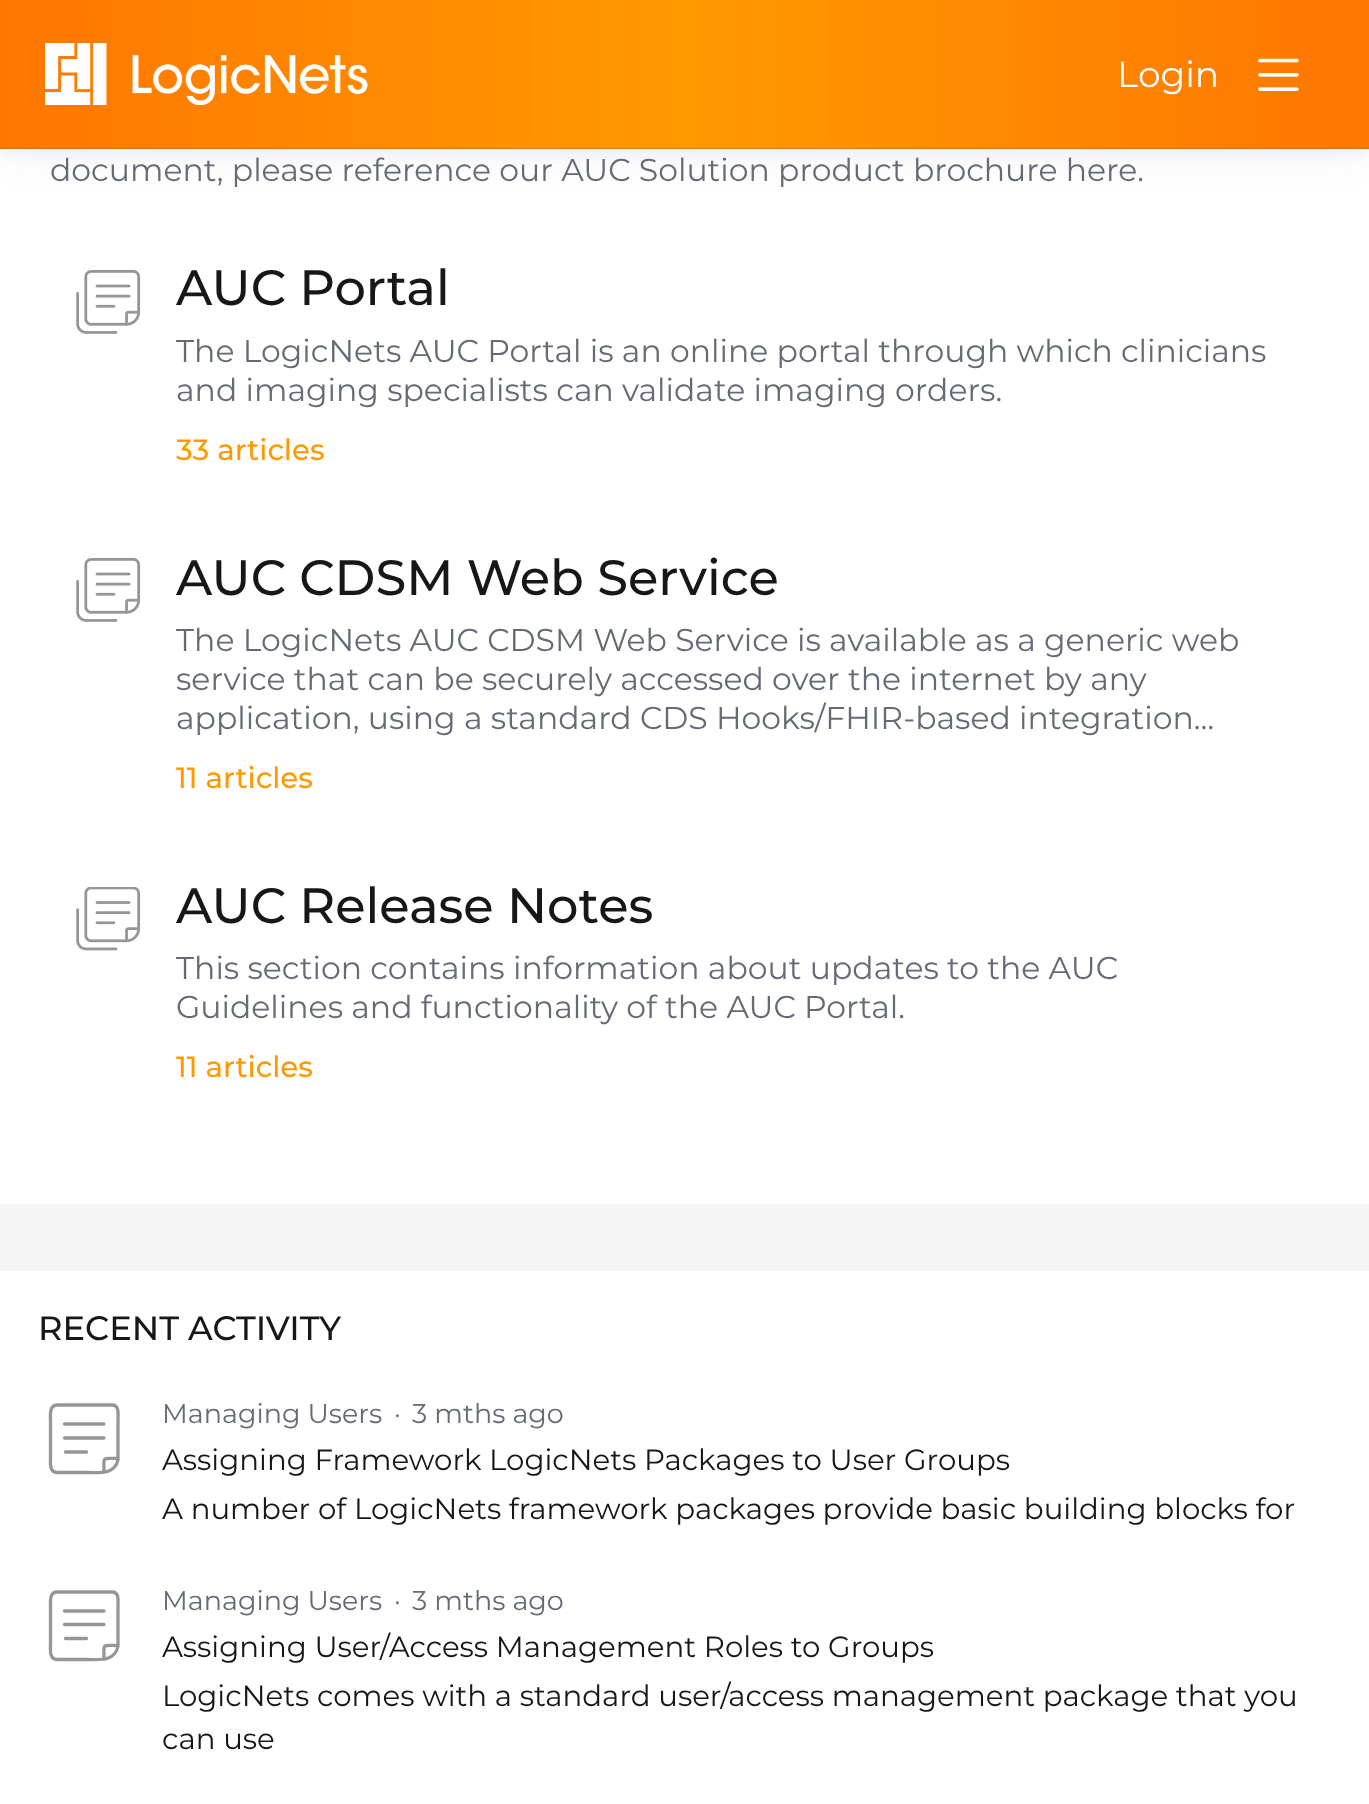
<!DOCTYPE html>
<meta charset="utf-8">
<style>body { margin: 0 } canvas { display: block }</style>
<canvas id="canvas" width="1369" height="1804"></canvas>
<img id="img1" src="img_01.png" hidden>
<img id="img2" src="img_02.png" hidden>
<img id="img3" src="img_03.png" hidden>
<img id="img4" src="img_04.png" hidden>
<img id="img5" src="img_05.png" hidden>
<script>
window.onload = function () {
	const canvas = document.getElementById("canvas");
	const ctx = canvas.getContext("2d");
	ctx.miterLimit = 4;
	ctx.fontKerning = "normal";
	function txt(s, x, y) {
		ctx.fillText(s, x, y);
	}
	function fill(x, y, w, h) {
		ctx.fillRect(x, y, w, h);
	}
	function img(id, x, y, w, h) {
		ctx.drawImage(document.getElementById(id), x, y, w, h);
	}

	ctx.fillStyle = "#F5F5F6";
	fill(0, 0, 1369, 1804);
	ctx.fillStyle = "#FFFFFF";
	fill(0, 149, 1369, 1055);
	ctx.fillStyle = "rgba(62, 57, 107, 0.06)";
	ctx.filter = "blur(10px)";
	ctx.beginPath();
	ctx.rect(0, 5, 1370, 148);
	ctx.fill();
	ctx.filter = "none";
	ctx.fillStyle = "rgba(62, 57, 107, 0.07)";
	ctx.filter = "blur(22.5px)";
	ctx.beginPath();
	ctx.rect(0, 0, 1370, 149);
	ctx.fill();
	ctx.filter = "none";
	ctx.fillStyle = "#CC6303";
	fill(0, 148, 1369, 1);
	img("img1", 0, 0, 1369, 149);
	img("img2", 45, 43, 323, 62);
	img("img3", 1258, 58, 41, 33);
	img("img4", 76, 270, 65, 64);
	img("img4", 76, 558, 65, 64);
	img("img5", 76, 887, 65, 64);
	ctx.fillStyle = "#FFFFFF";
	fill(0, 1271, 1369, 533);
	ctx.beginPath();
	ctx.moveTo(112, 1405);
	ctx.bezierCurveTo(119.5, 1405, 118, 1414, 118, 1419);
	ctx.lineTo(118, 1460);
	ctx.bezierCurveTo(114.5, 1475, 99, 1472.5, 87, 1472.5);
	ctx.lineTo(57, 1472.5);
	ctx.bezierCurveTo(49, 1472.5, 50.5, 1462, 50.5, 1457);
	ctx.lineTo(50.5, 1420.5);
	ctx.bezierCurveTo(50.5, 1416, 49, 1405, 57, 1405);
	ctx.closePath();
	ctx.strokeStyle = "#969696";
	ctx.lineWidth = 3.3;
	ctx.stroke();
	ctx.beginPath();
	ctx.moveTo(64.5, 1424);
	ctx.lineTo(104, 1424);
	ctx.moveTo(64.5, 1438);
	ctx.lineTo(104, 1438);
	ctx.moveTo(65.5, 1452);
	ctx.lineTo(86.5, 1452);
	ctx.lineCap = "round";
	ctx.stroke();
	ctx.beginPath();
	ctx.moveTo(104, 1472);
	ctx.bezierCurveTo(104, 1456, 101.5, 1458.5, 117.5, 1458.5);
	ctx.lineJoin = "round";
	ctx.stroke();
	ctx.beginPath();
	ctx.moveTo(112, 1592);
	ctx.bezierCurveTo(119.5, 1592, 118, 1601, 118, 1605.5);
	ctx.lineTo(118, 1646.5);
	ctx.bezierCurveTo(114.5, 1662, 99, 1659.5, 87, 1659.5);
	ctx.lineTo(57, 1659.5);
	ctx.bezierCurveTo(49, 1659.5, 50.5, 1649, 50.5, 1644);
	ctx.lineTo(50.5, 1607);
	ctx.bezierCurveTo(50.5, 1602.5, 49, 1592, 57, 1592);
	ctx.closePath();
	ctx.lineCap = "butt";
	ctx.lineJoin = "miter";
	ctx.stroke();
	ctx.beginPath();
	ctx.moveTo(64.5, 1611);
	ctx.lineTo(104, 1611);
	ctx.moveTo(64.5, 1624.5);
	ctx.lineTo(104, 1624.5);
	ctx.moveTo(65.5, 1638.5);
	ctx.lineTo(86.5, 1638.5);
	ctx.lineCap = "round";
	ctx.stroke();
	ctx.beginPath();
	ctx.moveTo(104, 1659);
	ctx.bezierCurveTo(104, 1643, 101.5, 1645.5, 117.5, 1645.5);
	ctx.lineJoin = "round";
	ctx.stroke();
	ctx.font = "36px Montserrat";
	txt("Login", 1117, 87);
	ctx.font = "31.5px Montserrat";
	ctx.fillStyle = "#656A76";
	txt("document, please reference our AUC Solution product brochure here.", 50, 181);
	ctx.font = "500 49.5px Montserrat";
	ctx.fillStyle = "#171717";
	txt("AUC Portal", 176, 305);
	ctx.font = "31.5px Montserrat";
	ctx.fillStyle = "#656A76";
	txt("The LogicNets AUC Portal is an online portal through which clinicians", 176, 362);
	txt("and imaging specialists can validate imaging orders.", 176, 401);
	ctx.font = "500 29.25px Montserrat";
	ctx.fillStyle = "#FF9902";
	txt("33 articles", 176, 460);
	ctx.font = "500 49.5px Montserrat";
	ctx.fillStyle = "#171717";
	txt("AUC CDSM Web Service", 176, 595);
	ctx.font = "31.5px Montserrat";
	ctx.fillStyle = "#656A76";
	txt("The LogicNets AUC CDSM Web Service is available as a generic web", 176, 651);
	txt("service that can be securely accessed over the internet by any", 176, 690);
	txt("application, using a standard CDS Hooks/FHIR-based integration…", 176, 729);
	ctx.font = "500 29.25px Montserrat";
	ctx.fillStyle = "#FF9902";
	txt("11 articles", 176, 788);
	ctx.font = "500 49.5px Montserrat";
	ctx.fillStyle = "#171717";
	txt("AUC Release Notes", 176, 923);
	ctx.font = "31.5px Montserrat";
	ctx.fillStyle = "#656A76";
	txt("This section contains information about updates to the AUC", 176, 979);
	txt("Guidelines and functionality of the AUC Portal.", 176, 1018);
	ctx.font = "500 29.25px Montserrat";
	ctx.fillStyle = "#FF9902";
	txt("11 articles", 176, 1077);
	ctx.font = "500 33.75px Montserrat";
	ctx.fillStyle = "#171717";
	txt("RECENT ACTIVITY", 38, 1340);
	ctx.font = "27px Montserrat";
	ctx.fillStyle = "#656A76";
	txt("Managing Users", 162, 1423);
	txt("·", 394, 1423);
	txt("3 mths ago", 412, 1423);
	ctx.font = "29.25px Montserrat";
	ctx.fillStyle = "#171717";
	txt("Assigning Framework LogicNets Packages to User Groups", 162, 1470);
	txt("A number of LogicNets framework packages provide basic building blocks for", 162, 1519);
	ctx.font = "27px Montserrat";
	ctx.fillStyle = "#656A76";
	txt("Managing Users", 162, 1610);
	txt("·", 394, 1610);
	txt("3 mths ago", 412, 1610);
	ctx.font = "29.25px Montserrat";
	ctx.fillStyle = "#171717";
	txt("Assigning User/Access Management Roles to Groups", 162, 1657);
	txt("LogicNets comes with a standard user/access management package that you", 162, 1706);
	txt("can use", 162, 1749);
};
</script>
